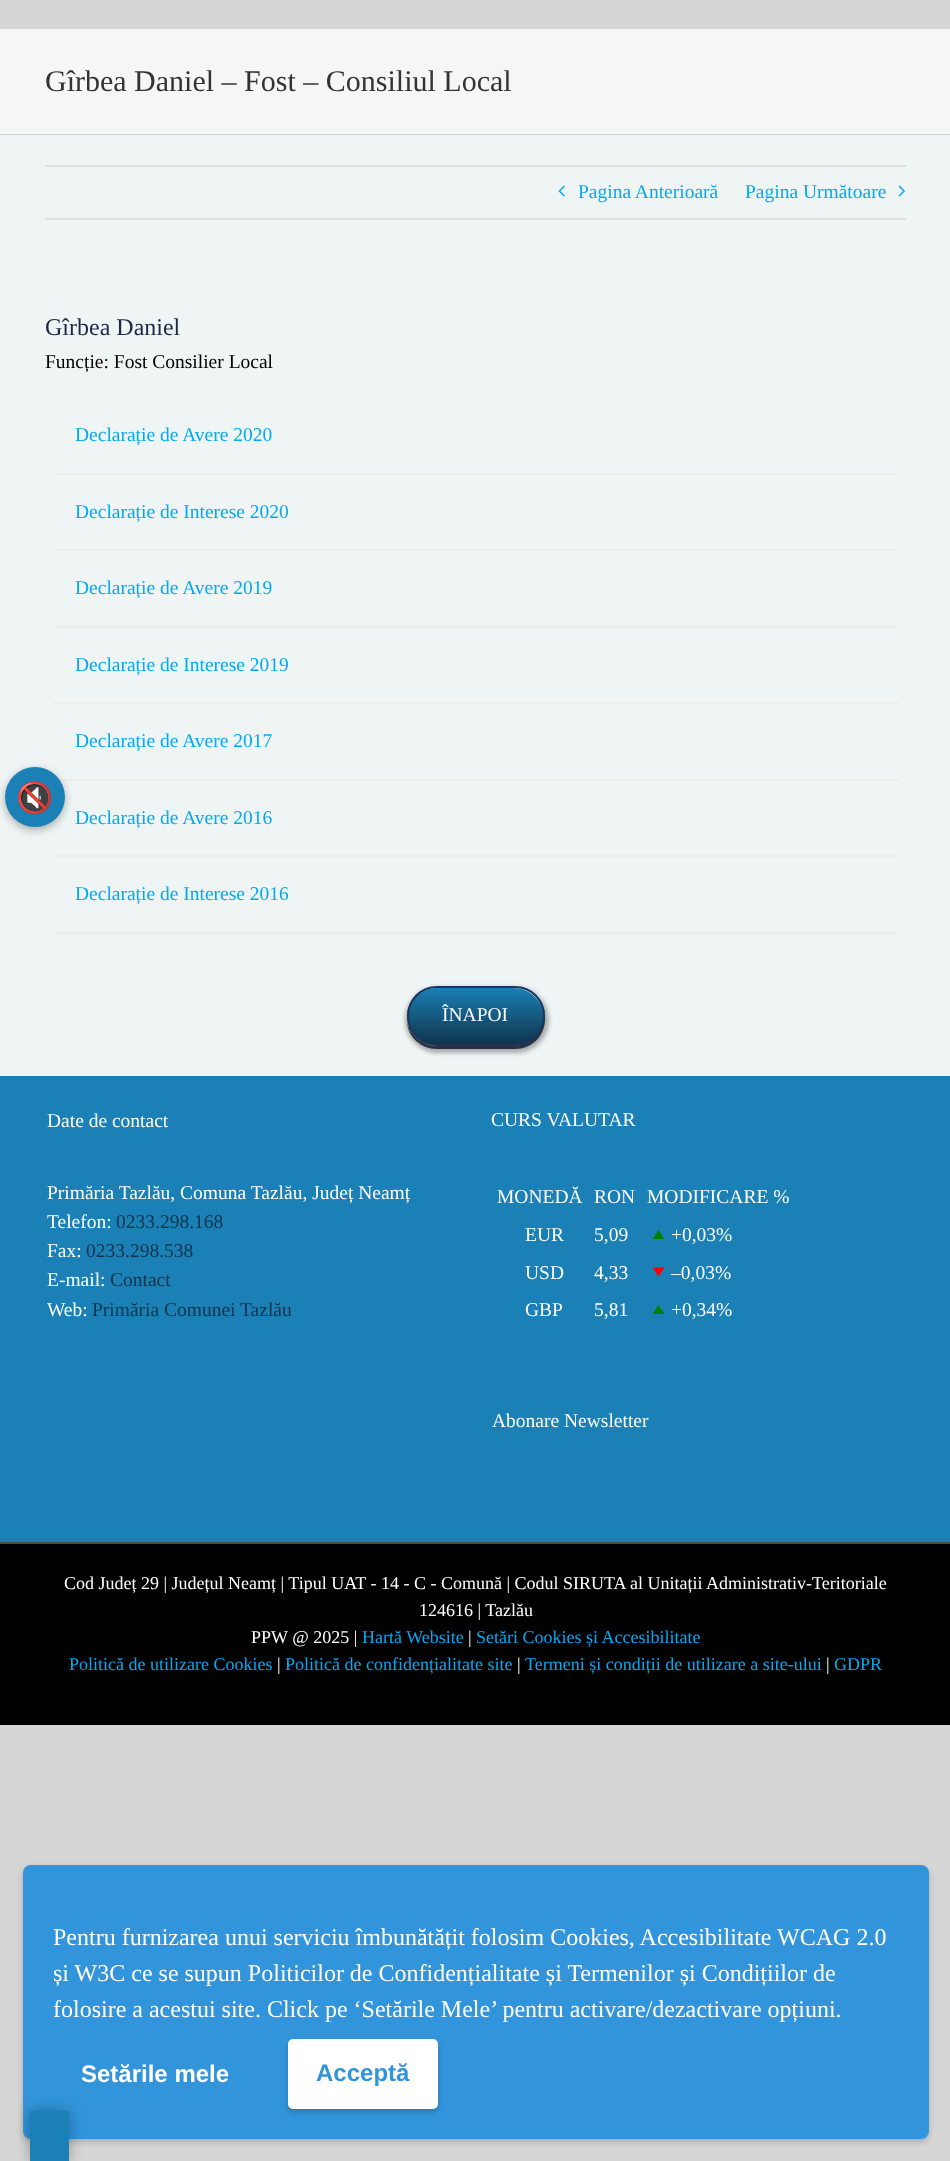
<!DOCTYPE html>
<meta charset="utf-8">
<style>body { margin: 0 } canvas { display: block }</style>
<canvas id="canvas" width="950" height="2161"></canvas>
<img id="img1" src="img_01.png" hidden>
<img id="img2" src="img_02.png" hidden>
<script>
window.onload = function () {
	const canvas = document.getElementById("canvas");
	const ctx = canvas.getContext("2d");
	ctx.miterLimit = 4;
	ctx.fontKerning = "normal";
	function txt(s, x, y) {
		ctx.fillText(s, x, y);
	}
	function fill(x, y, w, h) {
		ctx.fillRect(x, y, w, h);
	}
	function round(x, y, w, h, r) {
		ctx.beginPath();
		ctx.roundRect(x, y, w, h, r);
		ctx.fill();
	}
	function img(id, x, y, w, h) {
		ctx.drawImage(document.getElementById(id), x, y, w, h);
	}
	let gradient;

	ctx.fillStyle = "#D7D6D6";
	fill(0, 0, 950, 2161);
	ctx.fillStyle = "#EFF5F5";
	fill(0, 135, 950, 941);
	ctx.fillStyle = "#EFEDEA";
	fill(53, 779, 846, 2);
	ctx.fillStyle = "rgba(0, 0, 0, 0.3)";
	ctx.filter = "blur(4px)";
	ctx.beginPath();
	ctx.roundRect(5, 770, 60, 60, 30);
	ctx.fill();
	ctx.filter = "none";
	ctx.fillStyle = "#1A80B6";
	ctx.beginPath();
	ctx.arc(35, 797, 30, 0, Math.PI * 2);
	ctx.fill();
	ctx.fillStyle = "rgba(0, 0, 0, 0.2)";
	ctx.filter = "blur(3px)";
	ctx.beginPath();
	ctx.roundRect(23, 1868, 906, 274, 8);
	ctx.fill();
	ctx.filter = "none";
	ctx.fillStyle = "#3295DB";
	round(23, 1865, 906, 274, 8);
	ctx.fillStyle = "rgba(0, 0, 0, 0.3)";
	ctx.filter = "blur(7px)";
	ctx.beginPath();
	ctx.rect(30, 2111, 39, 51);
	ctx.fill();
	ctx.filter = "none";
	ctx.fillStyle = "#1A80B6";
	fill(30, 2111, 39, 50);
	ctx.fillStyle = "#F6F6F6";
	fill(0, 29, 950, 105);
	ctx.fillStyle = "#D2D3D4";
	fill(0, 27, 950, 2);
	fill(0, 134, 950, 1);
	ctx.fillStyle = "#E0DEDE";
	fill(45, 165, 861, 2);
	fill(45, 218, 861, 2);
	img("img1", 558, 185, 7, 12);
	img("img2", 898, 185, 7, 12);
	ctx.fillStyle = "#EFEDEA";
	fill(53, 473, 846, 2);
	fill(53, 549, 846, 2);
	fill(53, 626, 846, 2);
	fill(53, 702, 846, 2);
	fill(53, 855, 846, 2);
	fill(53, 932, 846, 2);
	ctx.fillStyle = "rgba(0, 0, 0, 0.3)";
	ctx.filter = "blur(2px)";
	ctx.beginPath();
	ctx.roundRect(405, 987, 144, 66, 33);
	ctx.fill();
	ctx.filter = "none";
	ctx.fillStyle = "#2C2F3E";
	ctx.beginPath();
	ctx.moveTo(407, 1022);
	ctx.bezierCurveTo(408, 1037, 421, 1049, 437, 1049);
	ctx.lineTo(515, 1049);
	ctx.bezierCurveTo(532, 1049, 545, 1036, 545, 1019);
	ctx.lineTo(544, 1013);
	ctx.lineTo(544, 1016);
	ctx.bezierCurveTo(544, 1032, 531, 1046, 514, 1046);
	ctx.lineTo(436, 1046);
	ctx.bezierCurveTo(422, 1046, 410, 1035, 407, 1022);
	ctx.closePath();
	ctx.fill();
	ctx.save();
	ctx.beginPath();
	ctx.roundRect(407, 986, 138, 60, 30);
	ctx.clip();
	gradient = ctx.createLinearGradient(476, 987, 476, 1044);
	gradient.addColorStop(0, "#1A80B6");
	gradient.addColorStop(1, "#10354C");
	ctx.fillStyle = gradient;
	fill(407, 987, 138, 57);
	ctx.restore();
	ctx.fillStyle = "#FFFFFF";
	ctx.beginPath();
	ctx.moveTo(436, 988);
	ctx.lineTo(514, 988);
	ctx.bezierCurveTo(530, 988, 543, 1001, 543, 1016);
	ctx.bezierCurveTo(543, 1000, 530, 987, 514, 987);
	ctx.lineTo(436, 987);
	ctx.bezierCurveTo(421, 987, 408, 1000, 408, 1016);
	ctx.bezierCurveTo(408, 1001, 421, 988, 436, 988);
	ctx.closePath();
	ctx.fill();
	ctx.beginPath();
	ctx.roundRect(408, 987, 136, 58, 29);
	ctx.strokeStyle = "#1C355E";
	ctx.lineWidth = 2;
	ctx.stroke();
	ctx.fillStyle = "#1A80B6";
	fill(0, 1076, 950, 466);
	ctx.fillStyle = "#008000";
	ctx.beginPath();
	ctx.moveTo(664.5, 1239);
	ctx.lineTo(652.5, 1239);
	ctx.lineTo(658.5, 1230);
	ctx.closePath();
	ctx.fill();
	ctx.fillStyle = "#FF0000";
	ctx.beginPath();
	ctx.moveTo(652.5, 1267.5);
	ctx.lineTo(664.5, 1267.5);
	ctx.lineTo(658.5, 1276.5);
	ctx.closePath();
	ctx.fill();
	ctx.fillStyle = "#008000";
	ctx.beginPath();
	ctx.moveTo(664.5, 1314);
	ctx.lineTo(652.5, 1314);
	ctx.lineTo(658.5, 1305);
	ctx.closePath();
	ctx.fill();
	ctx.fillStyle = "#000000";
	fill(0, 1544, 950, 181);
	ctx.fillStyle = "#4B4C4D";
	fill(0, 1542, 950, 2);
	ctx.fillStyle = "rgba(0, 0, 0, 0.2)";
	ctx.filter = "blur(3px)";
	ctx.beginPath();
	ctx.roundRect(288, 2042, 150, 70, 5);
	ctx.fill();
	ctx.filter = "none";
	ctx.fillStyle = "#FFFFFF";
	ctx.beginPath();
	ctx.roundRect(289, 2040, 148, 68, 4);
	ctx.fill();
	ctx.strokeStyle = "#FFFFFF";
	ctx.stroke();
	ctx.font = "30px Noto Color Emoji";
	txt("🔇", 16, 808);
	ctx.font = "30px Liberation Serif";
	ctx.fillStyle = "#333333";
	txt("Gîrbea Daniel – Fost – Consiliul Local", 45, 91);
	ctx.font = "19.5px Liberation Serif";
	ctx.fillStyle = "#03A9F4";
	txt("Pagina Anterioară", 578, 198);
	txt("Pagina Următoare", 745, 198);
	ctx.font = "24px Liberation Serif";
	ctx.fillStyle = "#1F2845";
	txt("Gîrbea Daniel", 45, 335);
	ctx.font = "19.5px Liberation Serif";
	ctx.fillStyle = "#000000";
	txt("Funcție: Fost Consilier Local", 45, 368);
	ctx.fillStyle = "#03A9F4";
	txt("Declarație de Avere 2020", 75, 441);
	txt("Declarație de Interese 2020", 75, 518);
	txt("Declarație de Avere 2019", 75, 594);
	txt("Declarație de Interese 2019", 75, 671);
	txt("Declarație de Avere 2017", 75, 747);
	txt("Declarație de Avere 2016", 75, 824);
	txt("Declarație de Interese 2016", 75, 900);
	ctx.fillStyle = "#FFFFFF";
	txt("ÎNAPOI", 442, 1021);
	txt("Date de contact", 47, 1127);
	txt("Primăria Tazlău, Comuna Tazlău, Județ Neamț", 47, 1199);
	txt("Telefon:", 47, 1228);
	ctx.fillStyle = "#10354C";
	txt("0233.298.168", 116, 1228);
	ctx.fillStyle = "#FFFFFF";
	txt("Fax:", 47, 1257);
	ctx.fillStyle = "#10354C";
	txt("0233.298.538", 86, 1257);
	ctx.fillStyle = "#FFFFFF";
	txt("E-mail:", 47, 1286);
	ctx.fillStyle = "#10354C";
	txt("Contact", 110, 1286);
	ctx.fillStyle = "#FFFFFF";
	txt("Web:", 47, 1316);
	ctx.fillStyle = "#10354C";
	txt("Primăria Comunei Tazlău", 92, 1316);
	ctx.fillStyle = "#FFFFFF";
	txt("CURS VALUTAR", 491, 1126);
	txt("MONEDĂ", 497, 1203);
	txt("RON", 594, 1203);
	txt("MODIFICARE %", 647, 1203);
	txt("EUR", 525, 1241);
	txt("5,09", 594, 1241);
	txt("+0,03%", 671, 1241);
	txt("USD", 525, 1279);
	txt("4,33", 594, 1279);
	txt("–0,03%", 671, 1279);
	txt("GBP", 525, 1316);
	txt("5,81", 594, 1316);
	txt("+0,34%", 671, 1316);
	txt("Abonare Newsletter", 492, 1427);
	ctx.font = "18px Liberation Serif";
	txt("Cod Județ 29 | Județul Neamț | Tipul UAT - 14 - C - Comună | Codul SIRUTA al Unitații Administrativ-Teritoriale", 64, 1589);
	txt("124616 | Tazlău", 419, 1616);
	txt("PPW @ 2025 |", 251, 1643);
	ctx.fillStyle = "#03A9F4";
	txt("Hartă Website", 362, 1643);
	ctx.fillStyle = "#FFFFFF";
	txt("|", 468, 1643);
	ctx.fillStyle = "#03A9F4";
	txt("Setări Cookies și Accesibilitate", 476, 1643);
	txt("Politică de utilizare Cookies", 69, 1670);
	ctx.fillStyle = "#FFFFFF";
	txt("|", 277, 1670);
	ctx.fillStyle = "#03A9F4";
	txt("Politică de confidențialitate site", 285, 1670);
	ctx.fillStyle = "#FFFFFF";
	txt("|", 517, 1670);
	ctx.fillStyle = "#03A9F4";
	txt("Termeni și condiții de utilizare a site-ului", 525, 1670);
	ctx.fillStyle = "#FFFFFF";
	txt("|", 826, 1670);
	ctx.fillStyle = "#03A9F4";
	txt("GDPR", 834, 1670);
	ctx.font = "24px Liberation Serif";
	ctx.fillStyle = "#FFFFFF";
	txt("Pentru furnizarea unui serviciu îmbunătățit folosim Cookies, Accesibilitate WCAG 2.0", 53, 1945);
	txt("și W3C ce se supun Politicilor de Confidențialitate și Termenilor și Condițiilor de", 53, 1981);
	txt("folosire a acestui site. Click pe ‘Setările Mele’ pentru activare/dezactivare opțiuni.", 53, 2017);
	ctx.font = "bold 24px Liberation Sans";
	txt("Setările mele", 81, 2082);
	ctx.fillStyle = "#3295DB";
	txt("Acceptă", 316, 2081);
};
</script>
